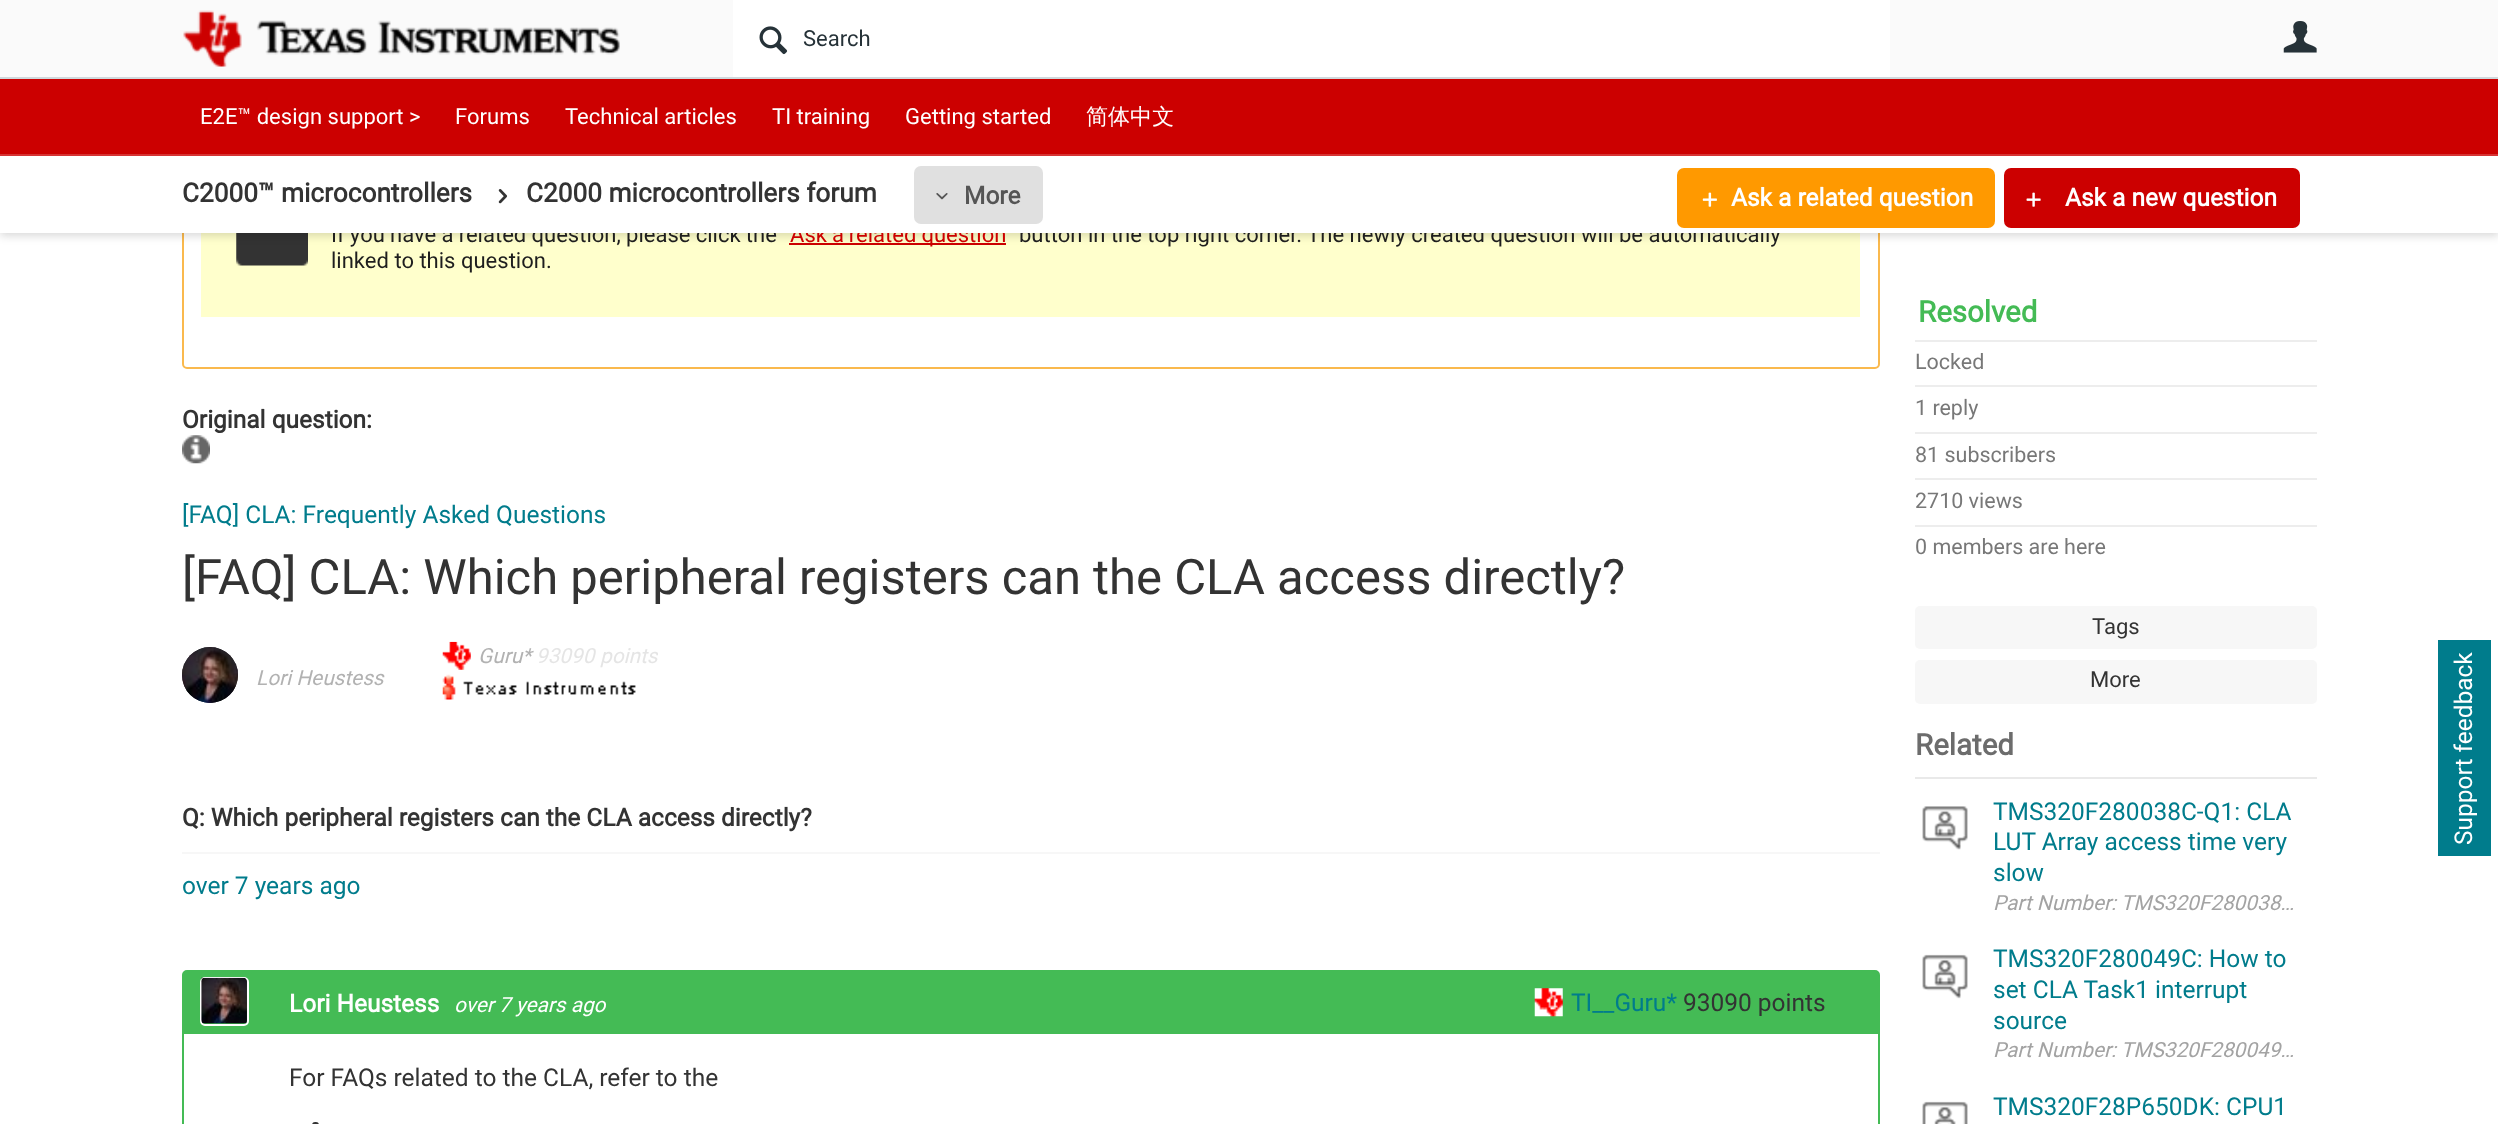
<!DOCTYPE html>
<meta charset="utf-8">
<style>body { margin: 0 } canvas { display: block }</style>
<canvas id="canvas" width="2498" height="1124"></canvas>
<img id="img1" src="img_08.png" hidden>
<img id="img2" src="img_01.png" hidden>
<img id="img3" src="img_02.png" hidden>
<img id="img4" src="img_03.png" hidden>
<img id="img5" src="img_09.png" hidden>
<img id="img6" src="img_10.png" hidden>
<img id="img7" src="img_11.png" hidden>
<img id="img8" src="img_12.png" hidden>
<img id="img9" src="img_13.png" hidden>
<img id="img10" src="img_14.png" hidden>
<img id="img11" src="img_15.png" hidden>
<img id="img12" src="img_16.png" hidden>
<img id="img13" src="img_17.png" hidden>
<img id="img14" src="img_18.png" hidden>
<img id="img15" src="img_19.png" hidden>
<img id="img16" src="img_20.png" hidden>
<img id="img17" src="img_21.png" hidden>
<img id="img18" src="img_22.png" hidden>
<img id="img19" src="img_07.png" hidden>
<img id="img20" src="img_06.png" hidden>
<img id="img21" src="img_05.png" hidden>
<img id="img22" src="img_04.png" hidden>
<script>
window.onload = function () {
	const canvas = document.getElementById("canvas");
	const ctx = canvas.getContext("2d");
	ctx.miterLimit = 4;
	ctx.fontKerning = "normal";
	function txt(s, x, y) {
		ctx.fillText(s, x, y);
	}
	function fill(x, y, w, h) {
		ctx.fillRect(x, y, w, h);
	}
	function round(x, y, w, h, r) {
		ctx.beginPath();
		ctx.roundRect(x, y, w, h, r);
		ctx.fill();
	}
	function img(id, x, y, w, h) {
		ctx.drawImage(document.getElementById(id), x, y, w, h);
	}

	ctx.fillStyle = "#FFFFFF";
	fill(0, 0, 2498, 1124);
	ctx.beginPath();
	ctx.roundRect(183, 127, 1696, 241, 4);
	ctx.strokeStyle = "#FAB94D";
	ctx.lineWidth = 2;
	ctx.stroke();
	ctx.fillStyle = "#FFFFCC";
	fill(201, 233, 1659, 84);
	img("img1", 236, 233, 72, 33);
	ctx.fillStyle = "#CC0000";
	fill(789, 243, 217, 2);
	ctx.fillStyle = "rgba(0, 0, 0, 0.15)";
	ctx.filter = "blur(4.5px)";
	ctx.beginPath();
	ctx.rect(0, 4, 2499, 232);
	ctx.fill();
	ctx.filter = "none";
	ctx.fillStyle = "#FAFAFA";
	fill(0, 0, 2498, 77);
	ctx.fillStyle = "#CFD8DC";
	fill(0, 77, 2498, 2);
	img("img2", 183, 10, 437, 57);
	ctx.fillStyle = "#FFFFFF";
	fill(733, 0, 1157, 77);
	img("img3", 759, 26, 29, 29);
	img("img4", 2283, 21, 34, 32);
	ctx.fillStyle = "#CC0000";
	fill(0, 79, 2498, 75);
	ctx.fillStyle = "#D63333";
	fill(0, 154, 2498, 2);
	img("img5", 182, 435, 28, 29);
	img("img6", 182, 647, 56, 56);
	img("img7", 182, 647, 56, 56);
	img("img8", 442, 641, 29, 29);
	img("img9", 442, 674, 194, 26);
	ctx.fillStyle = "#F7F7F7";
	fill(182, 852, 1698, 2);
	ctx.beginPath();
	ctx.roundRect(183, 971, 1696, 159, 4);
	ctx.strokeStyle = "#44BB55";
	ctx.stroke();
	ctx.fillStyle = "#44BB55";
	fill(184, 972, 1694, 62);
	img("img10", 201, 977, 46, 47);
	ctx.beginPath();
	ctx.roundRect(201, 978, 47, 47, 4);
	ctx.strokeStyle = "#FFFFFF";
	ctx.stroke();
	img("img11", 201, 977, 46, 47);
	img("img12", 1534, 988, 29, 29);
	ctx.fillStyle = "#333333";
	round(312, 1122, 7, 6, 3.5);
	ctx.fillStyle = "#EDEDED";
	fill(1915, 340, 402, 2);
	fill(1915, 385, 402, 2);
	fill(1915, 432, 402, 2);
	fill(1915, 478, 402, 2);
	fill(1915, 525, 402, 2);
	ctx.fillStyle = "#F7F7F7";
	round(1915, 606, 402, 43, 5);
	round(1915, 660, 402, 44, 5);
	ctx.fillStyle = "#007C8C";
	fill(2438, 640, 53, 216);
	ctx.fillStyle = "#E9E9E9";
	fill(1915, 777, 402, 2);
	img("img13", 1922, 806, 46, 44);
	img("img14", 1922, 806, 46, 44);
	img("img15", 1922, 954, 46, 45);
	img("img16", 1922, 955, 46, 43);
	img("img17", 1922, 1101, 46, 23);
	img("img18", 1922, 1102, 46, 22);
	ctx.font = "22.05px Roboto";
	ctx.fillStyle = "#263238";
	txt("Search", 803, 46);
	ctx.fillStyle = "#FFFFFF";
	txt("E2E™ design support >", 200, 124);
	txt("Forums", 455, 124);
	txt("Technical articles", 565, 124);
	txt("TI training", 772, 124);
	txt("Getting started", 905, 124);
	ctx.font = "500 22.05px WenQuanYi Zen Hei";
	txt("简体中文", 1086, 124);
	ctx.wordSpacing = "-0.25px";
	ctx.font = "22.05px Roboto";
	ctx.fillStyle = "#1E1E1E";
	txt("If you have a related question, please click the", 331, 242);
	ctx.wordSpacing = "-0.5px";
	ctx.fillStyle = "#CC0000";
	txt("Ask a related question", 790, 242);
	ctx.wordSpacing = "0px";
	ctx.fillStyle = "#1E1E1E";
	txt("button in the top right corner. The newly created question will be automatically", 1019, 242);
	ctx.fillStyle = "#FFFFFF";
	fill(0, 156, 2498, 77);
	ctx.fillStyle = "#CC0000";
	round(2004, 168, 296, 60, 7);
	img("img19", 2026, 192, 15, 15);
	ctx.font = "bold 24.5px Roboto";
	ctx.fillStyle = "#FFFFFF";
	txt("Ask a new question", 2065, 206);
	ctx.fillStyle = "#FF9900";
	round(1677, 168, 318, 60, 7);
	img("img20", 1702, 192, 15, 15);
	ctx.fillStyle = "#FFFFFF";
	txt("Ask a related question", 1731, 206);
	ctx.fillStyle = "#E0E0E0";
	round(914, 166, 129, 58, 7);
	img("img21", 936, 193, 12, 7);
	ctx.fillStyle = "#555555";
	txt("More", 964, 204);
	img("img22", 498, 189, 10, 15);
	ctx.font = "bold 26.25px Roboto";
	ctx.fillStyle = "#333333";
	txt("C2000 microcontrollers forum", 526, 202);
	txt("C2000™︎ microcontrollers", 182, 202);
	ctx.font = "22.05px Roboto";
	ctx.fillStyle = "#1E1E1E";
	txt("linked to this question.", 331, 268);
	ctx.font = "bold 24.5px Roboto";
	ctx.fillStyle = "#333333";
	txt("Original question:", 182, 428);
	ctx.font = "24.5px Roboto";
	ctx.fillStyle = "#007C8C";
	txt("[FAQ] CLA: Frequently Asked Questions", 182, 523);
	ctx.font = "49px Roboto";
	ctx.fillStyle = "#333333";
	txt("[FAQ] CLA: Which peripheral registers can the CLA access directly?", 182, 594);
	ctx.font = "italic 20.8px Roboto";
	ctx.fillStyle = "#B2B2B2";
	txt("Guru*", 478, 663);
	ctx.fillStyle = "#E5E5E5";
	txt("93090", 536, 663);
	ctx.save();
	ctx.beginPath();
	ctx.rect(182, 642, 476, 69);
	ctx.clip();
	txt("points", 600, 663);
	ctx.restore();
	ctx.fillStyle = "#B2B2B2";
	txt("Lori Heustess", 256, 685);
	ctx.font = "bold 24.5px Roboto";
	ctx.fillStyle = "#333333";
	txt("Q: Which peripheral registers can the CLA access directly?", 182, 826);
	ctx.font = "24.5px Roboto";
	ctx.fillStyle = "#007C8C";
	txt("over 7 years ago", 182, 894);
	ctx.font = "bold 24.5px Roboto";
	ctx.fillStyle = "#FFFFFF";
	txt("Lori Heustess", 289, 1012);
	ctx.font = "italic 20.8px Roboto";
	txt("over 7 years ago", 454, 1012);
	ctx.font = "24.5px Roboto";
	ctx.fillStyle = "#007C8C";
	txt("TI__Guru*", 1571, 1011);
	ctx.fillStyle = "#333333";
	txt("93090 points", 1683, 1011);
	txt("For FAQs related to the CLA, refer to the", 289, 1086);
	ctx.font = "bold 29.5px Roboto";
	ctx.fillStyle = "#44BB55";
	txt("Resolved", 1918, 322);
	ctx.font = "21.5px Roboto";
	ctx.fillStyle = "#787878";
	txt("Locked", 1915, 369);
	txt("1 reply", 1915, 415);
	txt("81 subscribers", 1915, 462);
	txt("2710 views", 1915, 508);
	txt("0 members are here", 1915, 554);
	ctx.font = "22.05px Roboto";
	ctx.fillStyle = "#333333";
	txt("Tags", 2092, 634);
	txt("More", 2090, 687);
	ctx.font = "24.5px Roboto";
	ctx.fillStyle = "#FFFFFF";
	ctx.save();
	ctx.translate(2472, 845);
	ctx.rotate(-90 * Math.PI / 180);
	ctx.fillText("Support feedback", 0, 0);
	ctx.restore();
	ctx.font = "bold 29.5px Roboto";
	ctx.fillStyle = "#6C6C6C";
	txt("Related", 1915, 755);
	ctx.font = "24.5px Roboto";
	ctx.fillStyle = "#007C8C";
	txt("TMS320F280038C-Q1: CLA", 1993, 820);
	txt("LUT Array access time very", 1993, 850);
	txt("slow", 1993, 881);
	ctx.font = "italic 20.8px Roboto";
	ctx.fillStyle = "#A3A3A3";
	txt("Part Number: TMS320F280038…", 1993, 910);
	ctx.font = "24.5px Roboto";
	ctx.fillStyle = "#007C8C";
	txt("TMS320F280049C: How to", 1993, 967);
	txt("set CLA Task1 interrupt", 1993, 998);
	txt("source", 1993, 1029);
	ctx.font = "italic 20.8px Roboto";
	ctx.fillStyle = "#A3A3A3";
	txt("Part Number: TMS320F280049…", 1993, 1057);
	ctx.font = "24.5px Roboto";
	ctx.fillStyle = "#007C8C";
	txt("TMS320F28P650DK: CPU1", 1993, 1115);
};
</script>
